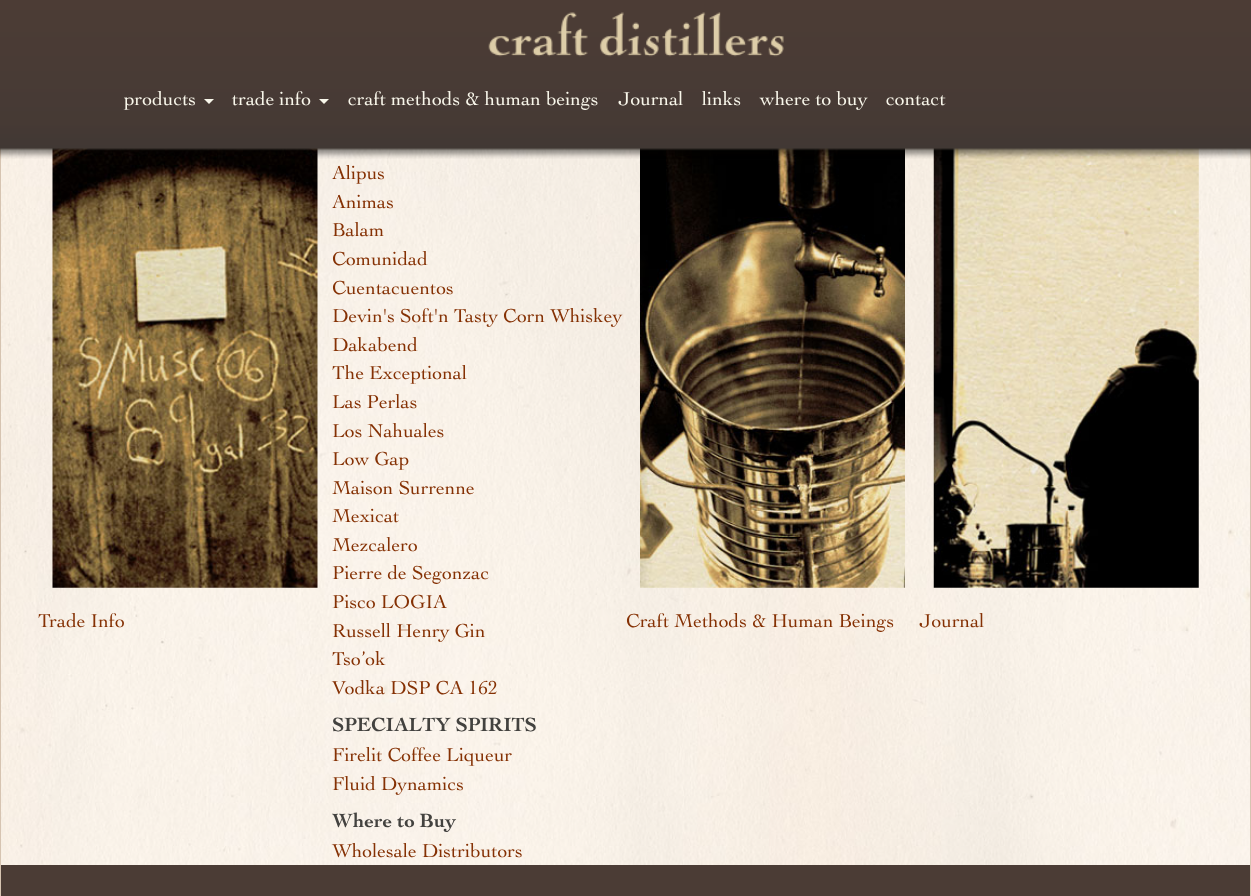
<!DOCTYPE html>
<meta charset="utf-8">
<style>body { margin: 0 } canvas { display: block }</style>
<canvas id="canvas" width="1251" height="896"></canvas>
<img id="img1" src="img_01.png" hidden>
<img id="img2" src="img_04.png" hidden>
<img id="img3" src="img_05.png" hidden>
<img id="img4" src="img_06.png" hidden>
<img id="img5" src="img_02.png" hidden>
<img id="img6" src="img_03.png" hidden>
<script>
window.onload = function () {
	const canvas = document.getElementById("canvas");
	const ctx = canvas.getContext("2d");
	ctx.miterLimit = 4;
	ctx.fontKerning = "normal";
	function txt(s, x, y) {
		ctx.fillText(s, x, y);
	}
	function fill(x, y, w, h) {
		ctx.fillRect(x, y, w, h);
	}
	function img(id, x, y, w, h) {
		ctx.drawImage(document.getElementById(id), x, y, w, h);
	}

	ctx.fillStyle = "#FFFFFF";
	fill(0, 0, 1251, 896);
	img("img1", 1, 148, 1249, 717);
	ctx.fillStyle = "#D6C4B1";
	fill(1250, 148, 1, 748);
	fill(0, 148, 1, 748);
	img("img2", 52, 148, 266, 440);
	img("img3", 640, 148, 265, 440);
	img("img4", 933, 148, 266, 440);
	img("img5", 0, 0, 1251, 159);
	img("img6", 488, 12, 296, 45);
	ctx.fillStyle = "#F9F7EB";
	ctx.beginPath();
	ctx.moveTo(204, 99);
	ctx.lineTo(214, 99);
	ctx.lineTo(209, 104);
	ctx.closePath();
	ctx.fill();
	ctx.beginPath();
	ctx.moveTo(319, 99);
	ctx.lineTo(329, 99);
	ctx.lineTo(324, 104);
	ctx.closePath();
	ctx.fill();
	ctx.fillStyle = "#4B3C35";
	fill(1, 865, 1249, 31);
	ctx.font = "500 19.75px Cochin";
	ctx.fillStyle = "#F9F7EB";
	txt("products", 124, 105);
	txt("trade info", 232, 105);
	txt("craft methods & human beings", 348, 105);
	txt("Journal", 618, 105);
	txt("links", 702, 105);
	txt("where to buy", 760, 105);
	txt("contact", 886, 105);
	ctx.fillStyle = "#853104";
	txt("Trade Info", 38, 627);
	txt("Alipus", 332, 179);
	txt("Animas", 332, 208);
	txt("Balam", 332, 236);
	txt("Comunidad", 332, 265);
	txt("Cuentacuentos", 332, 294);
	txt("Devin's Soft'n Tasty Corn Whiskey", 332, 322);
	txt("Dakabend", 332, 351);
	txt("The Exceptional", 332, 379);
	txt("Las Perlas", 332, 408);
	txt("Los Nahuales", 332, 437);
	txt("Low Gap", 332, 465);
	txt("Maison Surrenne", 332, 494);
	txt("Mexicat", 332, 522);
	txt("Mezcalero", 332, 551);
	txt("Pierre de Segonzac", 332, 579);
	txt("Pisco LOGIA", 332, 608);
	txt("Russell Henry Gin", 332, 637);
	txt("Tso’ok", 332, 665);
	txt("Vodka DSP CA 162", 332, 694);
	ctx.font = "19.75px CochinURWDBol";
	ctx.fillStyle = "#43423F";
	txt("SPECIALTY SPIRITS", 332, 731);
	ctx.font = "500 19.75px Cochin";
	ctx.fillStyle = "#853104";
	txt("Firelit Coffee Liqueur", 332, 761);
	txt("Fluid Dynamics", 332, 790);
	ctx.font = "19.75px CochinURWDBol";
	ctx.fillStyle = "#43423F";
	txt("Where to Buy", 332, 827);
	ctx.font = "500 19.75px Cochin";
	ctx.fillStyle = "#853104";
	txt("Wholesale Distributors", 332, 857);
	txt("Craft Methods & Human Beings", 626, 627);
	txt("Journal", 919, 627);
};
</script>
